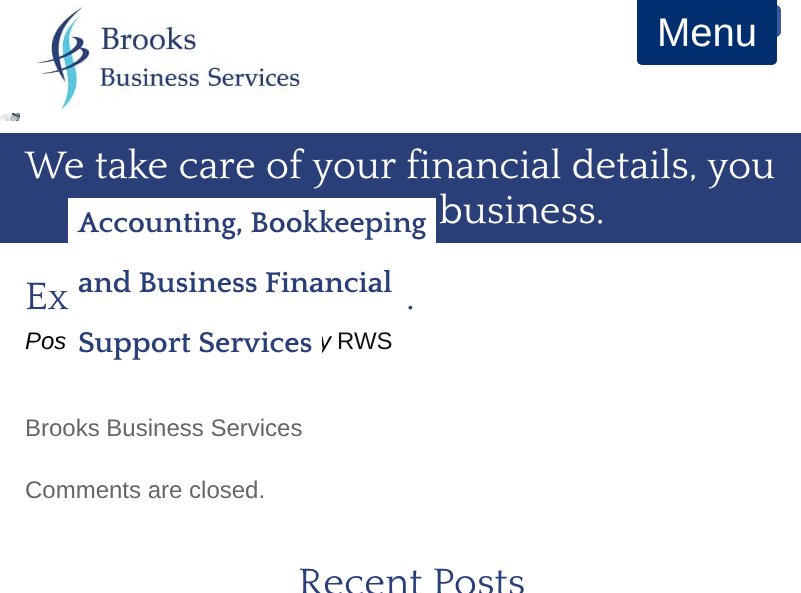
<!DOCTYPE html>
<meta charset="utf-8">
<style>body { margin: 0 } canvas { display: block }</style>
<canvas id="canvas" width="801" height="593"></canvas>
<img id="img1" src="img_01.png" hidden>
<img id="img2" src="img_02.png" hidden>
<img id="img3" src="img_03.png" hidden>
<script>
window.onload = function () {
	const canvas = document.getElementById("canvas");
	const ctx = canvas.getContext("2d");
	ctx.miterLimit = 4;
	ctx.fontKerning = "normal";
	function txt(s, x, y) {
		ctx.fillText(s, x, y);
	}
	function fill(x, y, w, h) {
		ctx.fillRect(x, y, w, h);
	}
	function img(id, x, y, w, h) {
		ctx.drawImage(document.getElementById(id), x, y, w, h);
	}

	ctx.fillStyle = "#FFFFFF";
	fill(0, 0, 801, 593);
	img("img1", 34, 5, 269, 106);
	ctx.fillStyle = "#002E6E";
	ctx.beginPath();
	ctx.roundRect(637, 0, 140, 65, [0, 0, 5, 5]);
	ctx.fill();
	img("img2", 777, 5, 4, 32);
	img("img3", 0, 113, 20, 8);
	ctx.fillStyle = "#2A3F77";
	fill(0, 133, 801, 110);
	ctx.fillStyle = "#FFFFFF";
	fill(68, 198, 368, 45);
	ctx.font = "40px Liberation Sans";
	txt("Menu", 657, 46);
	ctx.font = "40px Quattrocento";
	txt("We take care of your financial details, you", 25, 178);
	txt("business.", 439, 223);
	ctx.font = "bold 30px Quattrocento";
	ctx.fillStyle = "#2A3F77";
	txt("Accounting, Bookkeeping", 78, 232);
	txt("and Business Financial", 78, 292);
	txt("Support Services", 78, 352);
	ctx.font = "40px Quattrocento";
	txt("Ex", 25, 309);
	txt(".", 406, 309);
	ctx.font = "italic 24px Liberation Sans";
	ctx.fillStyle = "#000000";
	txt("Pos", 25, 349);
	txt("y", 319, 349);
	ctx.fillStyle = "#FFFFFF";
	fill(317, 336, 5, 18);
	ctx.font = "24px Liberation Sans";
	ctx.fillStyle = "#111111";
	txt("RWS", 337, 349);
	ctx.fillStyle = "#666666";
	txt("Brooks Business Services", 25, 436);
	txt("Comments are closed.", 25, 498);
	ctx.font = "40px Quattrocento";
	ctx.fillStyle = "#2A3F77";
	txt("Recent Posts", 298, 595);
};
</script>
